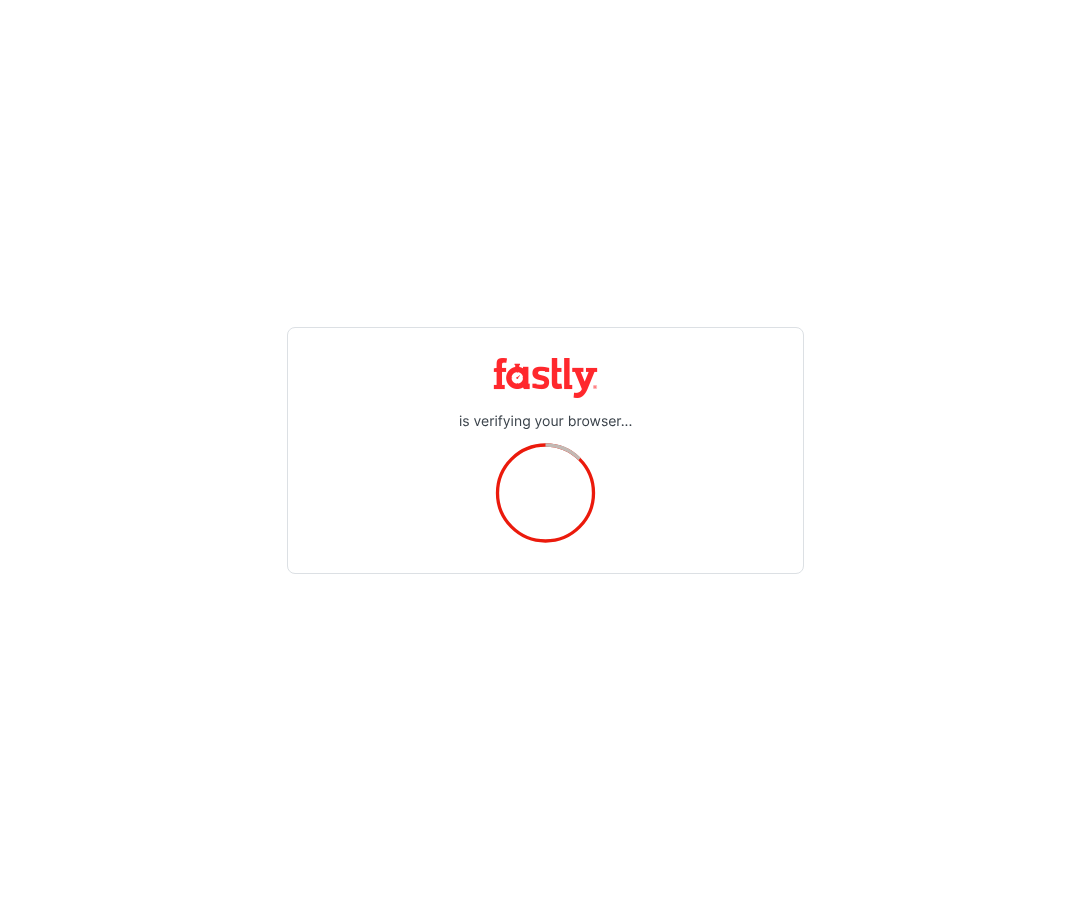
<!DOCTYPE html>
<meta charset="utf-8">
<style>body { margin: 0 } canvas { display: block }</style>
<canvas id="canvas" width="1091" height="901"></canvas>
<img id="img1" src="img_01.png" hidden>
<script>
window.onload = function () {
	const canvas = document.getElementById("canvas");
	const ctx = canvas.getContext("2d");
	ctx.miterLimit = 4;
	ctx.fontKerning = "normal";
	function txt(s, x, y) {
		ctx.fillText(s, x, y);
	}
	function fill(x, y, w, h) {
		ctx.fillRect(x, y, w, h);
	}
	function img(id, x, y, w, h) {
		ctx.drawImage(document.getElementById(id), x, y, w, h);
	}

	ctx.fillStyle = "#FFFFFF";
	fill(0, 0, 1091, 901);
	ctx.beginPath();
	ctx.roundRect(287.5, 327.5, 516, 246, 7.5);
	ctx.strokeStyle = "#DCE0E4";
	ctx.stroke();
	img("img1", 493, 358, 105, 40);
	ctx.beginPath();
	ctx.moveTo(497.5, 493);
	ctx.bezierCurveTo(497.5, 466.5, 519, 445, 545.5, 445);
	ctx.bezierCurveTo(572, 445, 593.5, 466.5, 593.5, 493);
	ctx.bezierCurveTo(593.5, 519.5, 572, 541, 545.5, 541);
	ctx.bezierCurveTo(519, 541, 497.5, 519.5, 497.5, 493);
	ctx.closePath();
	ctx.strokeStyle = "#EB1A0C";
	ctx.lineWidth = 3.3;
	ctx.stroke();
	ctx.beginPath();
	ctx.moveTo(579.5, 459);
	ctx.bezierCurveTo(570.5, 450, 558, 445, 545.5, 445);
	ctx.strokeStyle = "#C2BAB5";
	ctx.stroke();
	ctx.font = "14px Inter";
	ctx.fillStyle = "#3A424A";
	txt("is verifying your browser...", 459, 426);
};
</script>
